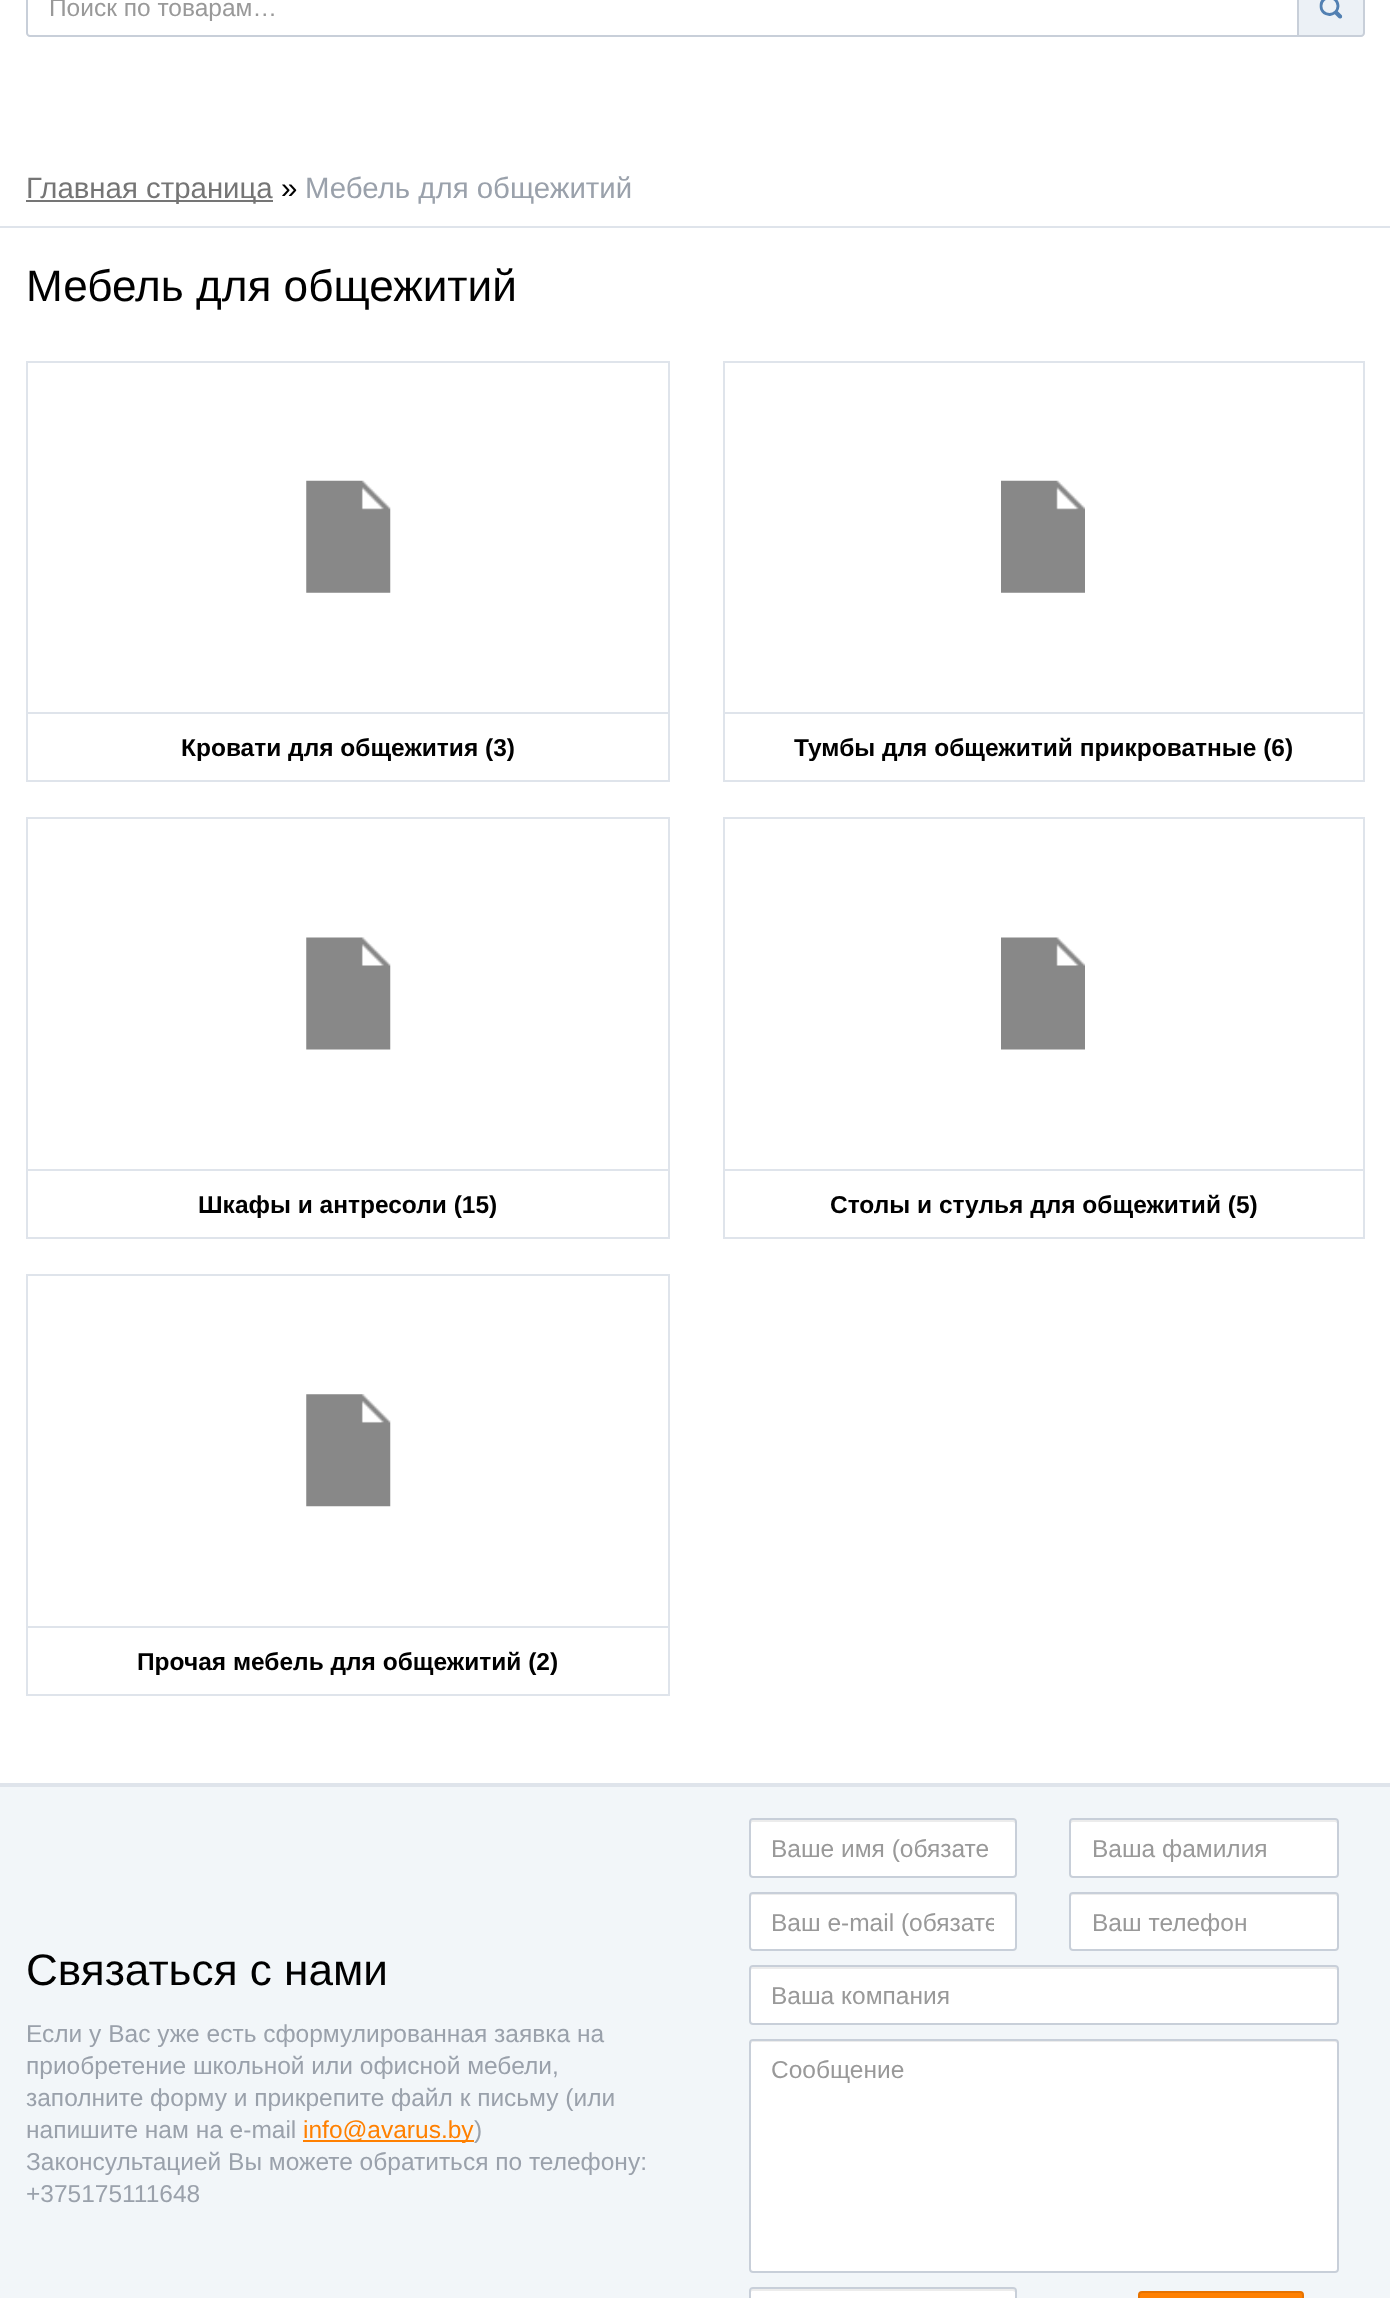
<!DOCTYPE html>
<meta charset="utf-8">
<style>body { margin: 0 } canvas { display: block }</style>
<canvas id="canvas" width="1390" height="2298"></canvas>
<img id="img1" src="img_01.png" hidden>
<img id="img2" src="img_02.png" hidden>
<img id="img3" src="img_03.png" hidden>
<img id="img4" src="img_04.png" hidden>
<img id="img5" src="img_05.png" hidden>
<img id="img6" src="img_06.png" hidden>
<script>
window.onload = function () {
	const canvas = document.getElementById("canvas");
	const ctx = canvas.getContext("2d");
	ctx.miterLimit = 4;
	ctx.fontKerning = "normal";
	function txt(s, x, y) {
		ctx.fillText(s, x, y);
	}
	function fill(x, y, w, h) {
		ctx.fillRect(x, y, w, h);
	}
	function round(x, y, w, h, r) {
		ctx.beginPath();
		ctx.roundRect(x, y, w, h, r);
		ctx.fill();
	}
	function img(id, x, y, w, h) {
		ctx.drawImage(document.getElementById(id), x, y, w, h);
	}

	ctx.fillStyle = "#FFFFFF";
	fill(0, 0, 1390, 2298);
	ctx.beginPath();
	ctx.moveTo(30, -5);
	ctx.lineTo(1298, -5);
	ctx.lineTo(1298, 36);
	ctx.lineTo(30, 36);
	ctx.bezierCurveTo(28.5, 36, 27, 34.5, 27, 33);
	ctx.lineTo(27, -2);
	ctx.bezierCurveTo(27, -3.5, 28.5, -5, 30, -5);
	ctx.closePath();
	ctx.strokeStyle = "#C8CFD9";
	ctx.lineWidth = 2;
	ctx.stroke();
	ctx.fillStyle = "#ECF1F6";
	ctx.beginPath();
	ctx.moveTo(1298, -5);
	ctx.lineTo(1361, -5);
	ctx.bezierCurveTo(1362.5, -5, 1364, -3.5, 1364, -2);
	ctx.lineTo(1364, 33);
	ctx.bezierCurveTo(1364, 34.5, 1362.5, 36, 1361, 36);
	ctx.lineTo(1298, 36);
	ctx.closePath();
	ctx.fill();
	ctx.stroke();
	img("img1", 1319, 0, 24, 19);
	ctx.fillStyle = "#DFE4EB";
	fill(0, 226, 1390, 2);
	ctx.fillStyle = "#757575";
	fill(26, 200, 247, 2);
	ctx.strokeStyle = "#DFE4EB";
	ctx.strokeRect(27, 362, 642, 419);
	img("img2", 306, 480, 85, 113);
	ctx.fillStyle = "#DFE4EB";
	fill(28, 712, 641, 2);
	ctx.strokeRect(724, 362, 640, 419);
	img("img3", 1001, 480, 84, 113);
	fill(725, 712, 638, 2);
	ctx.strokeRect(27, 818, 642, 420);
	img("img4", 306, 937, 85, 113);
	fill(28, 1169, 641, 2);
	ctx.strokeRect(724, 818, 640, 420);
	img("img5", 1001, 937, 84, 113);
	fill(725, 1169, 638, 2);
	ctx.strokeRect(27, 1275, 642, 420);
	img("img6", 306, 1394, 85, 113);
	fill(28, 1626, 641, 2);
	ctx.fillStyle = "#F2F6F9";
	fill(0, 1787, 1390, 511);
	ctx.fillStyle = "#DFE4EB";
	fill(0, 1783, 1390, 4);
	ctx.fillStyle = "#FF8001";
	fill(303, 2140, 171, 2);
	ctx.fillStyle = "#FFFFFF";
	round(749, 1818, 268, 60, 4);
	ctx.fillStyle = "#ECECEC";
	ctx.beginPath();
	ctx.moveTo(752, 1822);
	ctx.lineTo(1013, 1822);
	ctx.bezierCurveTo(1014, 1822, 1015, 1823, 1015, 1824);
	ctx.lineTo(1015, 1822);
	ctx.bezierCurveTo(1015, 1821, 1014, 1820, 1013, 1820);
	ctx.lineTo(753, 1820);
	ctx.bezierCurveTo(752, 1820, 751, 1821, 751, 1822);
	ctx.lineTo(751, 1824);
	ctx.closePath();
	ctx.fill();
	ctx.beginPath();
	ctx.roundRect(750, 1819, 266, 58, 3);
	ctx.strokeStyle = "#C8CFD9";
	ctx.stroke();
	ctx.fillStyle = "#FFFFFF";
	round(1069, 1818, 270, 60, 4);
	ctx.fillStyle = "#ECECEC";
	ctx.beginPath();
	ctx.moveTo(1073, 1822);
	ctx.lineTo(1335, 1822);
	ctx.bezierCurveTo(1336, 1822, 1337, 1823, 1337, 1824);
	ctx.lineTo(1337, 1822);
	ctx.bezierCurveTo(1337, 1821, 1336, 1820, 1335, 1820);
	ctx.lineTo(1073, 1820);
	ctx.bezierCurveTo(1072, 1820, 1071, 1821, 1071, 1822);
	ctx.lineTo(1071, 1824);
	ctx.bezierCurveTo(1071, 1823, 1072, 1822, 1073, 1822);
	ctx.closePath();
	ctx.fill();
	ctx.beginPath();
	ctx.roundRect(1070, 1819, 268, 58, 3);
	ctx.stroke();
	ctx.fillStyle = "#FFFFFF";
	round(749, 1892, 268, 59, 4);
	ctx.fillStyle = "#ECECEC";
	ctx.beginPath();
	ctx.moveTo(752, 1895);
	ctx.lineTo(1013, 1895);
	ctx.bezierCurveTo(1014, 1895, 1015, 1896, 1015, 1897);
	ctx.lineTo(1015, 1896);
	ctx.bezierCurveTo(1015, 1895, 1014, 1894, 1013, 1894);
	ctx.lineTo(753, 1894);
	ctx.bezierCurveTo(752, 1894, 751, 1895, 751, 1896);
	ctx.lineTo(751, 1897);
	ctx.closePath();
	ctx.fill();
	ctx.beginPath();
	ctx.roundRect(750, 1893, 266, 57, 3);
	ctx.stroke();
	ctx.fillStyle = "#FFFFFF";
	round(1069, 1892, 270, 59, 4);
	ctx.fillStyle = "#ECECEC";
	ctx.beginPath();
	ctx.moveTo(1073, 1895);
	ctx.lineTo(1335, 1895);
	ctx.bezierCurveTo(1336, 1895, 1337, 1896, 1337, 1897);
	ctx.lineTo(1337, 1895);
	ctx.lineTo(1335, 1894);
	ctx.lineTo(1073, 1894);
	ctx.bezierCurveTo(1071, 1894, 1071, 1896, 1071, 1897);
	ctx.bezierCurveTo(1071, 1896, 1072, 1895, 1073, 1895);
	ctx.closePath();
	ctx.fill();
	ctx.beginPath();
	ctx.roundRect(1070, 1893, 268, 57, 3);
	ctx.stroke();
	ctx.fillStyle = "#FFFFFF";
	round(749, 1965, 590, 60, 4);
	ctx.fillStyle = "#ECECEC";
	ctx.beginPath();
	ctx.moveTo(752, 1969);
	ctx.lineTo(1335, 1969);
	ctx.lineTo(1337, 1970);
	ctx.bezierCurveTo(1337, 1969, 1337, 1967, 1335, 1967);
	ctx.lineTo(753, 1967);
	ctx.lineTo(751, 1968);
	ctx.lineTo(751, 1970);
	ctx.closePath();
	ctx.fill();
	ctx.beginPath();
	ctx.roundRect(750, 1966, 588, 58, 3);
	ctx.stroke();
	ctx.fillStyle = "#FFFFFF";
	round(749, 2039, 590, 234, 4);
	ctx.fillStyle = "#ECECEC";
	ctx.beginPath();
	ctx.moveTo(752, 2042);
	ctx.lineTo(1335, 2042);
	ctx.bezierCurveTo(1336, 2042, 1337, 2043, 1337, 2044);
	ctx.bezierCurveTo(1337, 2043, 1337, 2041, 1335, 2041);
	ctx.lineTo(753, 2041);
	ctx.lineTo(751, 2042);
	ctx.lineTo(751, 2044);
	ctx.closePath();
	ctx.fill();
	ctx.beginPath();
	ctx.roundRect(750, 2040, 588, 232, 3);
	ctx.stroke();
	ctx.fillStyle = "#FFFFFF";
	round(749, 2287, 268, 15, 4);
	ctx.fillStyle = "#ECECEC";
	ctx.beginPath();
	ctx.moveTo(752, 2291);
	ctx.lineTo(1013, 2291);
	ctx.lineTo(1015, 2292);
	ctx.lineTo(1015, 2291);
	ctx.bezierCurveTo(1015, 2290, 1014, 2289, 1013, 2289);
	ctx.lineTo(753, 2289);
	ctx.bezierCurveTo(752, 2289, 751, 2290, 751, 2291);
	ctx.lineTo(751, 2292);
	ctx.closePath();
	ctx.fill();
	ctx.beginPath();
	ctx.roundRect(750, 2288, 266, 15, 3);
	ctx.stroke();
	ctx.fillStyle = "#FF8001";
	ctx.beginPath();
	ctx.roundRect(1139, 2292, 164, 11, 3);
	ctx.fill();
	ctx.strokeStyle = "#E77300";
	ctx.stroke();
	ctx.font = "24.5px Liberation Sans";
	ctx.fillStyle = "#999999";
	txt("Поиск по товарам…", 49, 16);
	ctx.font = "29.4px Liberation Sans";
	ctx.fillStyle = "#757575";
	txt("Главная страница", 26, 198);
	ctx.fillStyle = "#000000";
	txt("»", 281, 198);
	ctx.fillStyle = "#9AA1AB";
	txt("Мебель для общежитий", 305, 198);
	ctx.font = "44.1px Liberation Sans";
	ctx.fillStyle = "#000000";
	txt("Мебель для общежитий", 26, 301);
	ctx.font = "bold 24.5px Liberation Sans";
	txt("Кровати для общежития (3)", 181, 756);
	txt("Тумбы для общежитий прикроватные (6)", 794, 756);
	txt("Шкафы и антресоли (15)", 198, 1213);
	txt("Столы и стулья для общежитий (5)", 830, 1213);
	txt("Прочая мебель для общежитий (2)", 137, 1670);
	ctx.font = "44.1px Liberation Sans";
	txt("Связаться с нами", 26, 1985);
	ctx.font = "24.5px Liberation Sans";
	ctx.fillStyle = "#9AA1AB";
	txt("Если у Вас уже есть сформулированная заявка на", 26, 2042);
	txt("приобретение школьной или офисной мебели,", 26, 2074);
	txt("заполните форму и прикрепите файл к письму (или", 26, 2106);
	txt("напишите нам на e-mail", 26, 2138);
	ctx.fillStyle = "#FF8001";
	txt("info@avarus.by", 303, 2138);
	ctx.fillStyle = "#9AA1AB";
	txt(")", 474, 2138);
	txt("Законсультацией Вы можете обратиться по телефону:", 26, 2170);
	txt("+375175111648", 26, 2202);
	ctx.fillStyle = "#999999";
	txt("Ваше имя (обязате", 771, 1857);
	txt("Ваша фамилия", 1092, 1857);
	ctx.save();
	ctx.beginPath();
	ctx.rect(772, 1908, 222, 28);
	ctx.clip();
	txt("Ваш e-mail (обязате", 771, 1931);
	ctx.restore();
	txt("Ваш телефон", 1092, 1931);
	txt("Ваша компания", 771, 2004);
	txt("Сообщение", 771, 2078);
};
</script>
